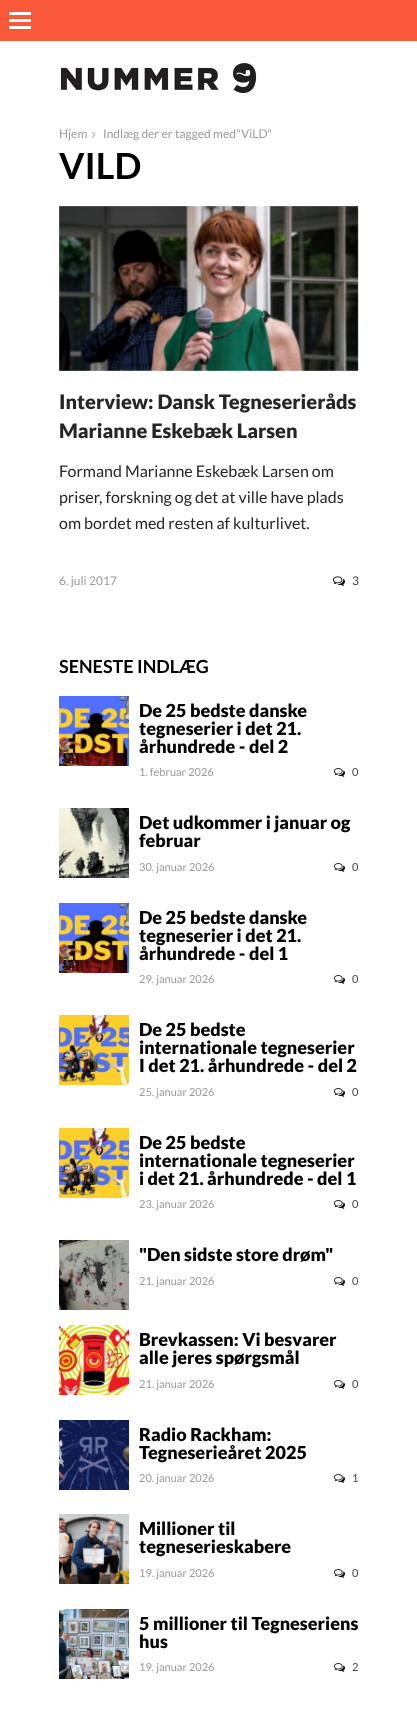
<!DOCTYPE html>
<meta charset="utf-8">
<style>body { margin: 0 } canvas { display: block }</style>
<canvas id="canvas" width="417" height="1711"></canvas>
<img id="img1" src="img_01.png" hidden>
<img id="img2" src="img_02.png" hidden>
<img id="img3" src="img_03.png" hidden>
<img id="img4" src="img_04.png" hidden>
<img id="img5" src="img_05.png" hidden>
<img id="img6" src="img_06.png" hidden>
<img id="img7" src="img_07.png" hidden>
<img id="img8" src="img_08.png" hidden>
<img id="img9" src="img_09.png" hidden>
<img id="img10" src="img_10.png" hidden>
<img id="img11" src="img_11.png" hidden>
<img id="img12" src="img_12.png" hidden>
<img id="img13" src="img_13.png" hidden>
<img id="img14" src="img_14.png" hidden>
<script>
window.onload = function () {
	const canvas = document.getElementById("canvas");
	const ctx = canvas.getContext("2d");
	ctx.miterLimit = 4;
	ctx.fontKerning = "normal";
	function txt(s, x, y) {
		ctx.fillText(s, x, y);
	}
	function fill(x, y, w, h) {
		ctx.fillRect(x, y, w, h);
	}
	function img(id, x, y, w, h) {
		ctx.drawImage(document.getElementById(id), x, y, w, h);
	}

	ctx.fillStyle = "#FFFFFF";
	fill(0, 0, 417, 1711);
	ctx.fillStyle = "#FA5939";
	fill(0, 0, 417, 41);
	ctx.fillStyle = "#FFFFFF";
	fill(9, 12, 22, 3);
	fill(9, 19, 22, 3);
	fill(9, 26, 22, 3);
	img("img1", 60, 62, 197, 32);
	img("img2", 92, 132, 4, 6);
	img("img3", 59, 206, 300, 165);
	img("img4", 333, 576, 12, 10);
	img("img5", 59, 696, 70, 70);
	img("img6", 334, 768, 11, 9);
	img("img7", 59, 808, 70, 70);
	img("img6", 334, 863, 11, 9);
	img("img5", 59, 903, 70, 70);
	img("img6", 334, 975, 11, 9);
	img("img8", 59, 1015, 70, 70);
	img("img6", 334, 1088, 11, 9);
	img("img9", 59, 1128, 70, 70);
	img("img6", 334, 1200, 11, 9);
	img("img10", 59, 1240, 70, 70);
	img("img6", 334, 1277, 11, 9);
	img("img11", 59, 1325, 70, 70);
	img("img6", 334, 1380, 11, 9);
	img("img12", 59, 1420, 70, 70);
	img("img6", 334, 1474, 11, 9);
	img("img13", 59, 1514, 70, 70);
	img("img6", 334, 1569, 11, 9);
	img("img14", 59, 1609, 70, 70);
	img("img6", 334, 1663, 11, 9);
	ctx.font = "12px Lato";
	ctx.fillStyle = "#9B9B9B";
	txt("Hjem", 59, 138);
	txt("Indlæg der er tagged med\"ViLD\"", 103, 138);
	ctx.font = "bold 36px Lato";
	ctx.fillStyle = "#000000";
	txt("VILD", 59, 179);
	ctx.font = "900 20px Lato";
	ctx.fillStyle = "#262626";
	txt("Interview: Dansk Tegneserieråds", 59, 409);
	txt("Marianne Eskebæk Larsen", 59, 438);
	ctx.font = "16px Lato";
	txt("Formand Marianne Eskebæk Larsen om", 59, 477);
	txt("priser, forskning og det at ville have plads", 59, 503);
	txt("om bordet med resten af kulturlivet.", 59, 529);
	ctx.font = "12px Lato";
	ctx.fillStyle = "#9B9B9B";
	txt("6. juli 2017", 59, 585);
	ctx.fillStyle = "#444444";
	txt("3", 352, 585);
	ctx.font = "bold 18px Lato";
	ctx.fillStyle = "#000000";
	txt("SENESTE INDLÆG", 59, 673);
	ctx.font = "900 18px Lato";
	txt("De 25 bedste danske", 139, 717);
	txt("tegneserier i det 21.", 139, 735);
	txt("århundrede - del 2", 139, 753);
	ctx.font = "11px Lato";
	ctx.fillStyle = "#9B9B9B";
	txt("1. februar 2026", 139, 776);
	ctx.fillStyle = "#444444";
	txt("0", 352, 776);
	ctx.font = "900 18px Lato";
	ctx.fillStyle = "#000000";
	txt("Det udkommer i januar og", 139, 829);
	txt("februar", 139, 847);
	ctx.font = "11px Lato";
	ctx.fillStyle = "#9B9B9B";
	txt("30. januar 2026", 139, 871);
	ctx.fillStyle = "#444444";
	txt("0", 352, 871);
	ctx.font = "900 18px Lato";
	ctx.fillStyle = "#000000";
	txt("De 25 bedste danske", 139, 924);
	txt("tegneserier i det 21.", 139, 942);
	txt("århundrede - del 1", 139, 960);
	ctx.font = "11px Lato";
	ctx.fillStyle = "#9B9B9B";
	txt("29. januar 2026", 139, 983);
	ctx.fillStyle = "#444444";
	txt("0", 352, 983);
	ctx.font = "900 18px Lato";
	ctx.fillStyle = "#000000";
	txt("De 25 bedste", 139, 1036);
	txt("internationale tegneserier", 139, 1054);
	txt("I det 21. århundrede - del 2", 139, 1072);
	ctx.font = "11px Lato";
	ctx.fillStyle = "#9B9B9B";
	txt("25. januar 2026", 139, 1096);
	ctx.fillStyle = "#444444";
	txt("0", 352, 1096);
	ctx.font = "900 18px Lato";
	ctx.fillStyle = "#000000";
	txt("De 25 bedste", 139, 1149);
	txt("internationale tegneserier", 139, 1167);
	txt("i det 21. århundrede - del 1", 139, 1185);
	ctx.font = "11px Lato";
	ctx.fillStyle = "#9B9B9B";
	txt("23. januar 2026", 139, 1208);
	ctx.fillStyle = "#444444";
	txt("0", 352, 1208);
	ctx.font = "900 18px Lato";
	ctx.fillStyle = "#000000";
	txt("\"Den sidste store drøm\"", 139, 1261);
	ctx.font = "11px Lato";
	ctx.fillStyle = "#9B9B9B";
	txt("21. januar 2026", 139, 1285);
	ctx.fillStyle = "#444444";
	txt("0", 352, 1285);
	ctx.font = "900 18px Lato";
	ctx.fillStyle = "#000000";
	txt("Brevkassen: Vi besvarer", 139, 1346);
	txt("alle jeres spørgsmål", 139, 1364);
	ctx.font = "11px Lato";
	ctx.fillStyle = "#9B9B9B";
	txt("21. januar 2026", 139, 1388);
	ctx.fillStyle = "#444444";
	txt("0", 352, 1388);
	ctx.font = "900 18px Lato";
	ctx.fillStyle = "#000000";
	txt("Radio Rackham:", 139, 1441);
	txt("Tegneserieåret 2025", 139, 1459);
	ctx.font = "11px Lato";
	ctx.fillStyle = "#9B9B9B";
	txt("20. januar 2026", 139, 1482);
	ctx.fillStyle = "#444444";
	txt("1", 352, 1482);
	ctx.font = "900 18px Lato";
	ctx.fillStyle = "#000000";
	txt("Millioner til", 139, 1535);
	txt("tegneserieskabere", 139, 1553);
	ctx.font = "11px Lato";
	ctx.fillStyle = "#9B9B9B";
	txt("19. januar 2026", 139, 1577);
	ctx.fillStyle = "#444444";
	txt("0", 352, 1577);
	ctx.font = "900 18px Lato";
	ctx.fillStyle = "#000000";
	txt("5 millioner til Tegneseriens", 139, 1630);
	txt("hus", 139, 1648);
	ctx.font = "11px Lato";
	ctx.fillStyle = "#9B9B9B";
	txt("19. januar 2026", 139, 1671);
	ctx.fillStyle = "#444444";
	txt("2", 352, 1671);
};
</script>
